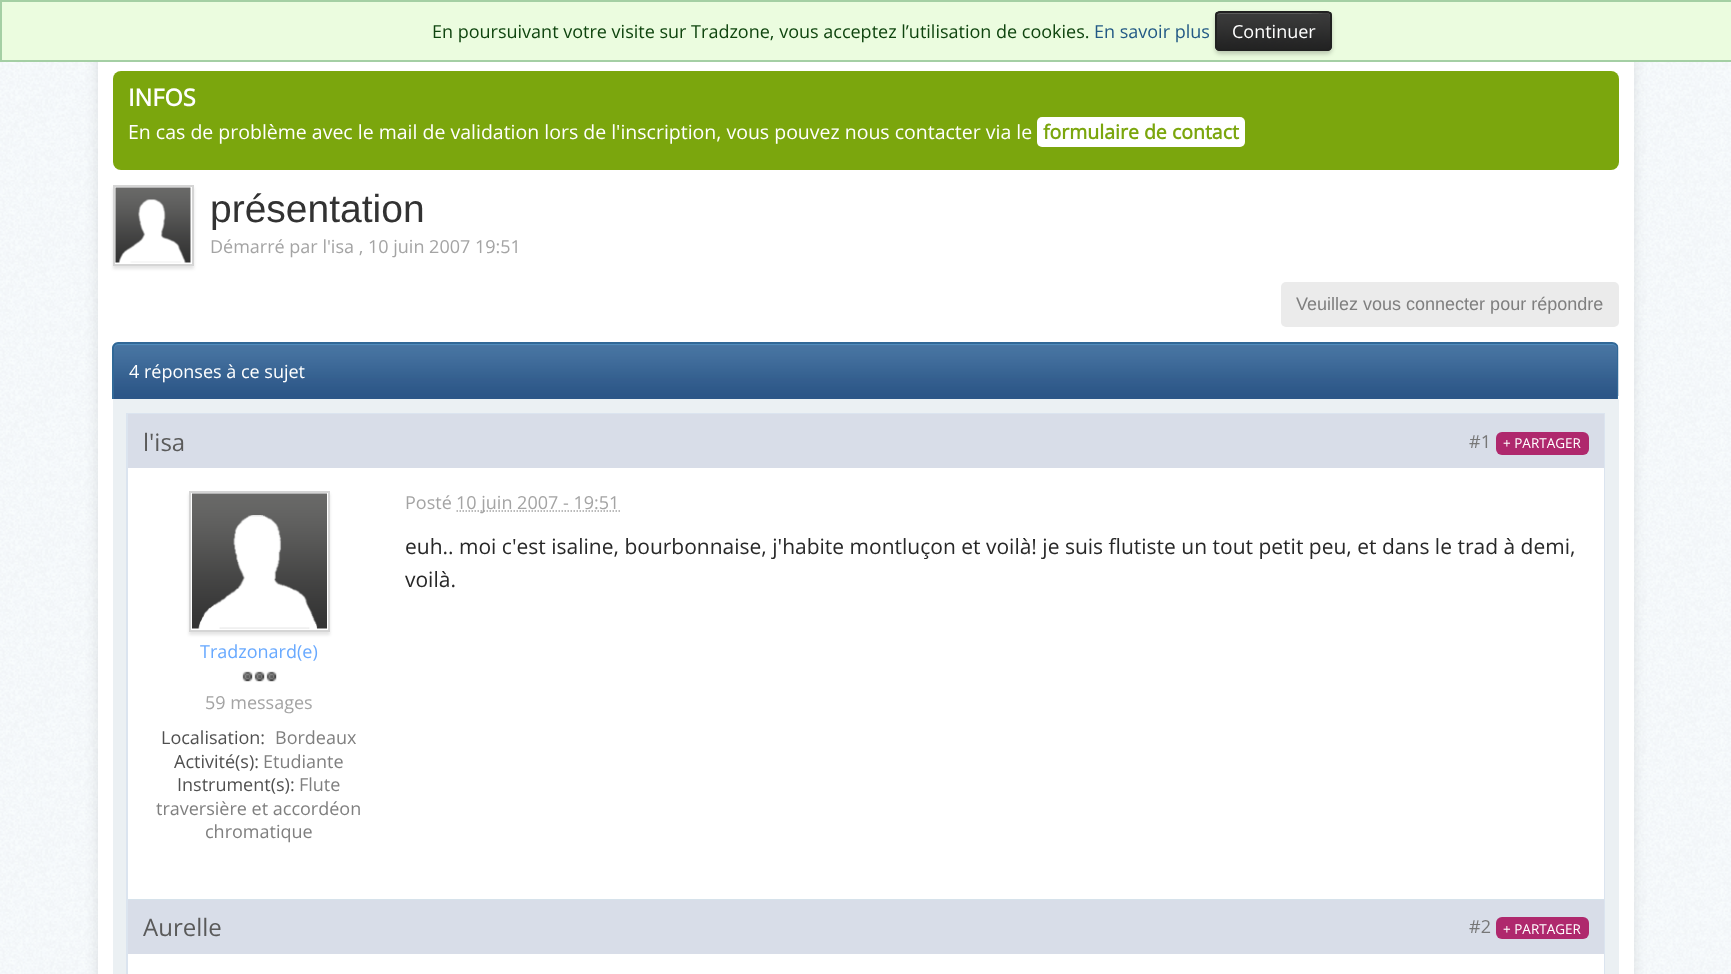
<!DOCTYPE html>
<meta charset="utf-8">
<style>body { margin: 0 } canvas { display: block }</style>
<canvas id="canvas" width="1731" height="974"></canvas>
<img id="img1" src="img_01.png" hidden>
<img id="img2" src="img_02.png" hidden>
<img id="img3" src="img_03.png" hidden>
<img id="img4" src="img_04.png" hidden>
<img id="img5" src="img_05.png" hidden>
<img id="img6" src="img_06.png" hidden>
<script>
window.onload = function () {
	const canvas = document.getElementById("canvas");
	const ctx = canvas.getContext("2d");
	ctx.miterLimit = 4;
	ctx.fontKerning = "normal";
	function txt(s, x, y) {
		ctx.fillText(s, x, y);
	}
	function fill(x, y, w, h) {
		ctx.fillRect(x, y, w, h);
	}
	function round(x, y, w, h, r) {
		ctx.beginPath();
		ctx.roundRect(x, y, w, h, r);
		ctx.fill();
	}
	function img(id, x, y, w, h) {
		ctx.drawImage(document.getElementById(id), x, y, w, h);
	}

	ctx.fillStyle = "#FFFFFF";
	fill(0, 0, 1731, 974);
	img("img1", 0, 62, 1731, 912);
	ctx.fillStyle = "rgba(0, 0, 0, 0.1)";
	ctx.filter = "blur(7px)";
	ctx.beginPath();
	ctx.rect(98, 2, 1536, 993);
	ctx.fill();
	ctx.filter = "none";
	ctx.fillStyle = "#EBFCDF";
	ctx.beginPath();
	ctx.rect(1, 1, 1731, 60);
	ctx.fill();
	ctx.strokeStyle = "#A4CFA4";
	ctx.lineWidth = 2;
	ctx.stroke();
	ctx.fillStyle = "rgba(0, 0, 0, 0.2)";
	ctx.filter = "blur(2px)";
	ctx.beginPath();
	ctx.roundRect(1215, 14, 117, 40, 5);
	ctx.fill();
	ctx.filter = "none";
	img("img2", 1215, 12, 117, 39);
	ctx.fillStyle = "#5C5C5C";
	ctx.beginPath();
	ctx.moveTo(1220, 14);
	ctx.lineTo(1310, 14);
	ctx.bezierCurveTo(1332, 14, 1330, 9, 1330, 27);
	ctx.lineTo(1330, 49);
	ctx.bezierCurveTo(1331, 49, 1331, 48, 1331, 47);
	ctx.lineTo(1331, 15);
	ctx.bezierCurveTo(1331, 13, 1330, 12, 1328, 12);
	ctx.lineTo(1220, 12);
	ctx.bezierCurveTo(1218, 12, 1217, 13, 1217, 15);
	ctx.closePath();
	ctx.fill();
	ctx.beginPath();
	ctx.roundRect(1216, 12, 115, 38, 4);
	ctx.strokeStyle = "#212121";
	ctx.stroke();
	ctx.fillStyle = "#FFFFFF";
	fill(98, 62, 1536, 912);
	ctx.fillStyle = "#7BA60D";
	round(113, 71, 1506, 99, 8);
	ctx.fillStyle = "#FFFFFF";
	round(1037, 117, 208, 30, 5);
	ctx.fillStyle = "rgba(0, 0, 0, 0.1)";
	ctx.filter = "blur(1.5px)";
	ctx.beginPath();
	ctx.rect(113, 188, 81, 81);
	ctx.fill();
	ctx.filter = "none";
	ctx.fillStyle = "#FFFFFF";
	ctx.beginPath();
	ctx.rect(114, 186, 79, 79);
	ctx.fill();
	ctx.strokeStyle = "#D5D5D5";
	ctx.stroke();
	img("img3", 115, 187, 76, 76);
	ctx.fillStyle = "#EBEBEB";
	round(1281, 282, 338, 45, 5);
	ctx.fillStyle = "#2C5687";
	fill(114, 396, 1503, 3);
	img("img4", 112, 343, 1507, 53);
	ctx.fillStyle = "#528CBC";
	ctx.beginPath();
	ctx.moveTo(118, 345);
	ctx.lineTo(1612, 345);
	ctx.bezierCurveTo(1615, 345, 1617, 347, 1617, 350);
	ctx.lineTo(1617, 349);
	ctx.bezierCurveTo(1617, 346, 1615, 344, 1612, 344);
	ctx.lineTo(119, 344);
	ctx.bezierCurveTo(116, 344, 114, 346, 114, 349);
	ctx.lineTo(114, 350);
	ctx.bezierCurveTo(114, 347, 116, 345, 118, 345);
	ctx.closePath();
	ctx.fill();
	ctx.fillStyle = "#316897";
	ctx.beginPath();
	ctx.moveTo(118, 342);
	ctx.lineTo(1612, 342);
	ctx.bezierCurveTo(1616, 342, 1618, 345, 1618, 348);
	ctx.lineTo(1618, 399);
	ctx.lineTo(112, 399);
	ctx.lineTo(112, 348);
	ctx.bezierCurveTo(112, 345, 115, 342, 118, 342);
	ctx.closePath();
	ctx.moveTo(118, 344);
	ctx.lineTo(1612, 344);
	ctx.bezierCurveTo(1615, 344, 1617, 346, 1617, 348);
	ctx.lineTo(1617, 399);
	ctx.lineTo(114, 399);
	ctx.lineTo(114, 348);
	ctx.bezierCurveTo(114, 346, 116, 344, 118, 344);
	ctx.closePath();
	ctx.fill("evenodd");
	ctx.fillStyle = "#EBF0F3";
	fill(113, 399, 1506, 575);
	ctx.strokeStyle = "#DBE4EF";
	ctx.strokeRect(127, 414, 1477, 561);
	ctx.fillStyle = "#FFFFFF";
	fill(128, 468, 1476, 431);
	ctx.fillStyle = "#D6E2EB";
	fill(128, 899, 1476, 1);
	ctx.fillStyle = "#D8DDE8";
	fill(128, 414, 1476, 54);
	ctx.fillStyle = "#AF286D";
	round(1496, 432, 93, 23, 6);
	ctx.beginPath();
	ctx.moveTo(456.5, 511);
	ctx.lineTo(620, 511);
	ctx.strokeStyle = "#A4A4A4";
	ctx.lineWidth = 1.5;
	ctx.setLineDash([1.5, 1.5]);
	ctx.stroke();
	ctx.fillStyle = "rgba(0, 0, 0, 0.1)";
	ctx.filter = "blur(1.5px)";
	ctx.beginPath();
	ctx.rect(189, 494, 141, 141);
	ctx.fill();
	ctx.filter = "none";
	ctx.fillStyle = "#FFFFFF";
	ctx.beginPath();
	ctx.rect(190, 492, 139, 139);
	ctx.fill();
	ctx.strokeStyle = "#D5D5D5";
	ctx.lineWidth = 2;
	ctx.setLineDash([]);
	ctx.stroke();
	img("img5", 192, 493, 135, 136);
	img("img6", 242, 671, 11, 11);
	img("img6", 254, 671, 11, 11);
	img("img6", 266, 671, 11, 11);
	fill(128, 954, 1476, 20);
	ctx.fillStyle = "#D8DDE8";
	fill(128, 900, 1476, 54);
	ctx.fillStyle = "#AF286D";
	round(1496, 917, 93, 22, 6);
	ctx.font = "18px Open Sans";
	ctx.fillStyle = "#0E440E";
	txt("En poursuivant votre visite sur Tradzone, vous acceptez l’utilisation de cookies.", 432, 38);
	ctx.fillStyle = "#225985";
	txt("En savoir plus", 1094, 38);
	ctx.fillStyle = "#FFFFFF";
	txt("Continuer", 1232, 38);
	ctx.font = "bold 23.5px Open Sans";
	txt("INFOS", 128, 106);
	ctx.font = "19.5px Open Sans";
	txt("En cas de problème avec le mail de validation lors de l'inscription, vous pouvez nous contacter via le", 128, 139);
	ctx.font = "bold 19.5px Open Sans";
	ctx.fillStyle = "#7BA60D";
	txt("formulaire de contact", 1043, 139);
	ctx.font = "39px Liberation Sans";
	ctx.fillStyle = "#323232";
	txt("présentation", 210, 222);
	ctx.font = "18px Open Sans";
	ctx.fillStyle = "#A4A4A4";
	txt("Démarré par l'isa , 10 juin 2007 19:51", 210, 253);
	ctx.font = "18px Liberation Sans";
	ctx.fillStyle = "#7F7F7F";
	txt("Veuillez vous connecter pour répondre", 1296, 310);
	ctx.font = "18px Open Sans";
	ctx.fillStyle = "#FFFFFF";
	txt("4 réponses à ce sujet", 129, 378);
	ctx.font = "24px Open Sans";
	ctx.fillStyle = "#5A5A5A";
	txt("l'isa", 143, 451);
	ctx.font = "18px Open Sans";
	ctx.fillStyle = "#777777";
	txt("#1", 1469, 448);
	ctx.font = "13.5px Open Sans";
	ctx.fillStyle = "#FFFFFF";
	txt("+ PARTAGER", 1503, 448);
	ctx.font = "18px Open Sans";
	ctx.fillStyle = "#A4A4A4";
	txt("Posté", 405, 509);
	txt("10 juin 2007 - 19:51", 456, 509);
	ctx.font = "21px Open Sans";
	ctx.fillStyle = "#282828";
	txt("euh.. moi c'est isaline, bourbonnaise, j'habite montluçon et voilà! je suis flutiste un tout petit peu, et dans le trad à demi,", 405, 554);
	txt("voilà.", 405, 587);
	ctx.font = "18px Open Sans";
	ctx.fillStyle = "#68A9FF";
	txt("Tradzonard(e)", 200, 658);
	ctx.fillStyle = "#A4A4A4";
	txt("59 messages", 205, 709);
	ctx.fillStyle = "#505050";
	txt("Localisation:", 161, 744);
	ctx.fillStyle = "#7F7F7F";
	txt("Bordeaux", 275, 744);
	ctx.fillStyle = "#505050";
	txt("Activité(s):", 174, 768);
	ctx.fillStyle = "#7F7F7F";
	txt("Etudiante", 263, 768);
	ctx.fillStyle = "#505050";
	txt("Instrument(s):", 177, 791);
	ctx.fillStyle = "#7F7F7F";
	txt("Flute", 299, 791);
	txt("traversière et accordéon", 156, 815);
	txt("chromatique", 205, 838);
	ctx.font = "24px Open Sans";
	ctx.fillStyle = "#5A5A5A";
	txt("Aurelle", 143, 936);
	ctx.font = "18px Open Sans";
	ctx.fillStyle = "#777777";
	txt("#2", 1469, 933);
	ctx.font = "13.5px Open Sans";
	ctx.fillStyle = "#FFFFFF";
	txt("+ PARTAGER", 1503, 934);
};
</script>
